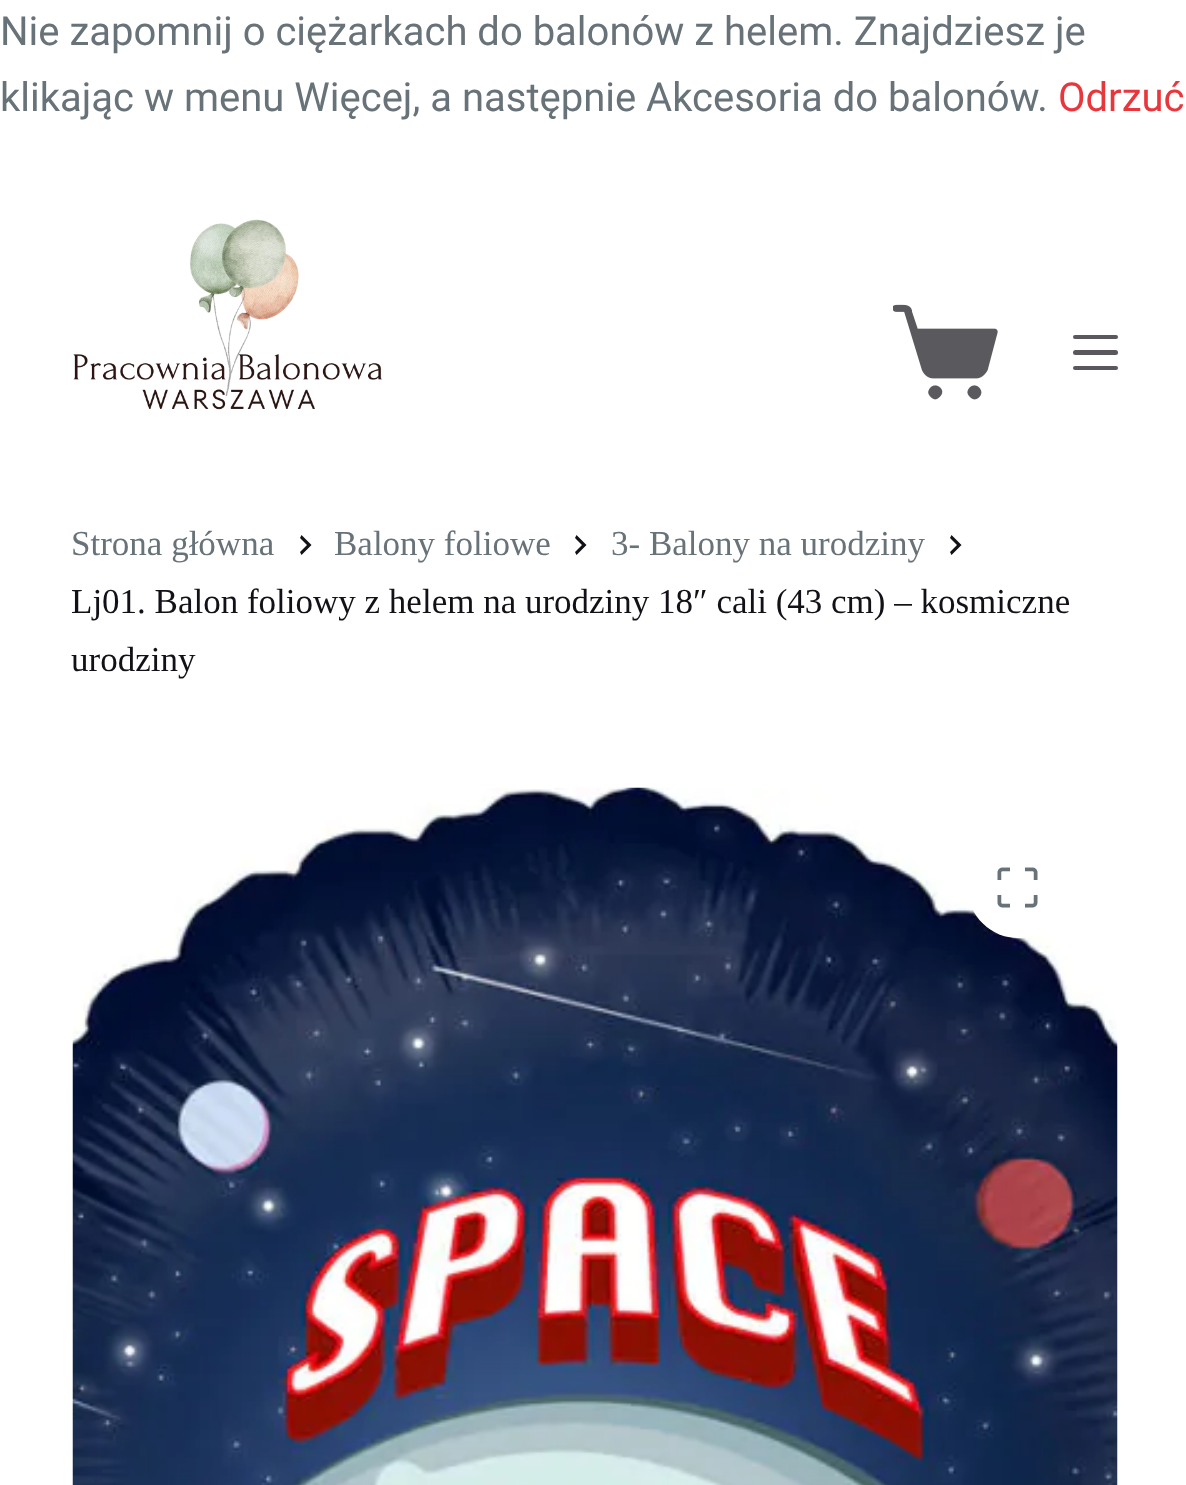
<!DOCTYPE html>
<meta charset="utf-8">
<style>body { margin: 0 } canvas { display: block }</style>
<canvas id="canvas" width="1186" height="1485"></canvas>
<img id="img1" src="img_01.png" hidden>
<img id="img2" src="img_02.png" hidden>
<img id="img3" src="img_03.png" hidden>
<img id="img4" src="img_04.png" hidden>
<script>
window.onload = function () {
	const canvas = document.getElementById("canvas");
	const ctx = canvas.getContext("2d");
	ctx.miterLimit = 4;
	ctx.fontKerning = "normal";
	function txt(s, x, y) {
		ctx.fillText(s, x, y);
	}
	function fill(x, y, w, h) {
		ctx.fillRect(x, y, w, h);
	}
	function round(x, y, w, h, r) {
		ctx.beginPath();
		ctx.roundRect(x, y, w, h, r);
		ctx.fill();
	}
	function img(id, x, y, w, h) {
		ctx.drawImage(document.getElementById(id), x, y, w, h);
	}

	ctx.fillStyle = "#FFFFFF";
	fill(0, 0, 1186, 1485);
	img("img1", 73, 219, 310, 191);
	img("img2", 893, 304, 105, 96);
	ctx.fillStyle = "#5A585D";
	round(1073, 335, 45, 4, 2);
	round(1073, 350, 45, 5, 2.5);
	round(1073, 366, 45, 4, 2);
	ctx.fillStyle = "#131117";
	ctx.beginPath();
	ctx.moveTo(300, 552);
	ctx.lineTo(307, 545);
	ctx.lineTo(300, 538);
	ctx.lineTo(301.5, 535);
	ctx.lineTo(311.5, 545);
	ctx.lineTo(301.5, 555);
	ctx.closePath();
	ctx.fill();
	ctx.beginPath();
	ctx.moveTo(575, 552);
	ctx.lineTo(582, 545);
	ctx.lineTo(575, 538);
	ctx.lineTo(576.5, 535);
	ctx.lineTo(586.5, 545);
	ctx.lineTo(576.5, 555);
	ctx.closePath();
	ctx.fill();
	ctx.beginPath();
	ctx.moveTo(950, 552);
	ctx.lineTo(957, 545);
	ctx.lineTo(950, 538);
	ctx.lineTo(951.5, 535);
	ctx.lineTo(961.5, 545);
	ctx.lineTo(951.5, 555);
	ctx.closePath();
	ctx.fill();
	img("img3", 72, 787, 1046, 698);
	ctx.fillStyle = "#FFFFFF";
	ctx.beginPath();
	ctx.arc(1018, 888, 50, 0, Math.PI * 2);
	ctx.fill();
	img("img4", 997, 867, 41, 41);
	ctx.font = "40px Roboto";
	ctx.fillStyle = "#687279";
	txt("Nie zapomnij o ciężarkach do balonów z helem. Znajdziesz je", 0, 45);
	txt("klikając w menu Więcej, a następnie Akcesoria do balonów.", 0, 111);
	ctx.fillStyle = "#E8363C";
	txt("Odrzuć", 1058, 111);
	ctx.font = "35px Liberation Serif";
	ctx.fillStyle = "#687279";
	txt("Strona główna", 71, 555);
	txt("Balony foliowe", 334, 555);
	txt("3- Balony na urodziny", 611, 555);
	ctx.fillStyle = "#131117";
	txt("Lj01. Balon foliowy z helem na urodziny 18″ cali (43 cm) – kosmiczne", 71, 613);
	txt("urodziny", 71, 671);
};
</script>
